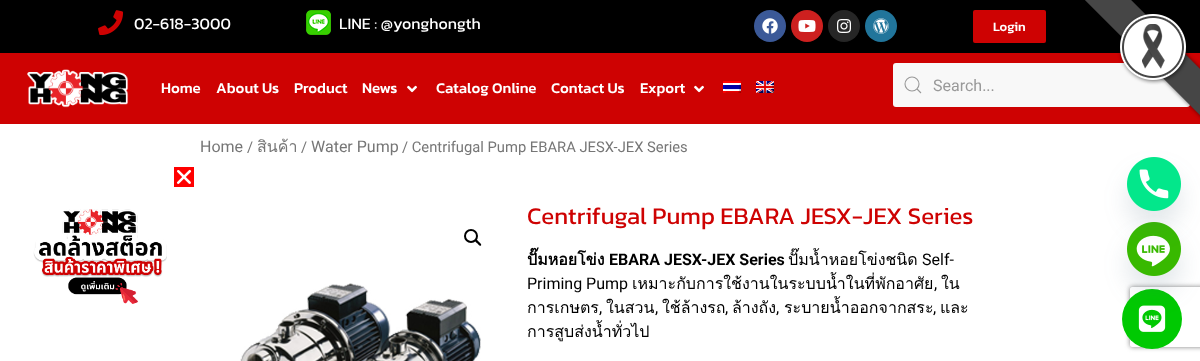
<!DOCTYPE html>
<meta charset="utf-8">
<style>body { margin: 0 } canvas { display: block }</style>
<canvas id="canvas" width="1200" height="361"></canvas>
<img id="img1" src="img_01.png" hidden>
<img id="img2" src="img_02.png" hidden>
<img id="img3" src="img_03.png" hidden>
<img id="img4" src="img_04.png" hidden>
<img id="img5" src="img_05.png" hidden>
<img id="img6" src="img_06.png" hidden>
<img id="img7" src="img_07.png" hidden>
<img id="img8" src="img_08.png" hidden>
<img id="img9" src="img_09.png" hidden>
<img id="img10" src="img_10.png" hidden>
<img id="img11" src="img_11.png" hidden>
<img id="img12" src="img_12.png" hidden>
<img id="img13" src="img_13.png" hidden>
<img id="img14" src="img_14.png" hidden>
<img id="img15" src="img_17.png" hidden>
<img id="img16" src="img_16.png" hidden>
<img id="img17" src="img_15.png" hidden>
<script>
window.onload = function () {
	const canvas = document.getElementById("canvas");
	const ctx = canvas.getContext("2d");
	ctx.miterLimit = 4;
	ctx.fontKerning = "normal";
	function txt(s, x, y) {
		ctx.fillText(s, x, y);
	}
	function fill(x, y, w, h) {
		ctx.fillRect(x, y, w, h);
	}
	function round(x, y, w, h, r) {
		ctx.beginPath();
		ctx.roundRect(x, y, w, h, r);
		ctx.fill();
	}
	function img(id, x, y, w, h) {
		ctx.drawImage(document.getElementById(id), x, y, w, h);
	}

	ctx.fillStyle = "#FFFFFF";
	fill(0, 0, 1200, 361);
	ctx.fillStyle = "#000000";
	fill(0, 0, 1200, 53);
	img("img1", 98, 10, 26, 25);
	img("img2", 306, 10, 25, 25);
	ctx.fillStyle = "#3B5998";
	ctx.beginPath();
	ctx.arc(770, 26, 16, 0, Math.PI * 2);
	ctx.fill();
	img("img3", 762, 18, 16, 16);
	ctx.fillStyle = "#CD201F";
	ctx.beginPath();
	ctx.arc(807, 26, 16, 0, Math.PI * 2);
	ctx.fill();
	img("img4", 798, 20, 18, 12);
	ctx.fillStyle = "#262626";
	ctx.beginPath();
	ctx.arc(844, 26, 16, 0, Math.PI * 2);
	ctx.fill();
	img("img5", 837, 19, 14, 14);
	ctx.fillStyle = "#21759B";
	ctx.beginPath();
	ctx.arc(881, 26, 16, 0, Math.PI * 2);
	ctx.fill();
	img("img6", 873, 18, 16, 16);
	ctx.fillStyle = "#CE0202";
	round(973, 10, 73, 33, 2);
	fill(0, 53, 1200, 71);
	img("img7", 27, 69, 102, 39);
	img("img8", 407, 85, 10, 8);
	img("img8", 694, 85, 10, 8);
	img("img9", 723, 81, 18, 12);
	img("img10", 756, 81, 18, 12);
	ctx.fillStyle = "#F8F8F8";
	round(893, 63, 297, 44, 3);
	ctx.beginPath();
	ctx.arc(912, 84, 7, 0, Math.PI * 2);
	ctx.strokeStyle = "#999999";
	ctx.lineWidth = 1.1;
	ctx.stroke();
	ctx.beginPath();
	ctx.moveTo(917, 89);
	ctx.lineTo(921, 93);
	ctx.closePath();
	ctx.stroke();
	img("img11", 1085, 0, 115, 120);
	ctx.fillStyle = "#FF0000";
	fill(174, 167, 20, 20);
	img("img12", 176, 169, 16, 15);
	img("img13", 33, 209, 134, 95);
	ctx.beginPath();
	ctx.arc(471, 236, 6, 0, Math.PI * 2);
	ctx.strokeStyle = "#000000";
	ctx.lineWidth = 2;
	ctx.stroke();
	ctx.fillStyle = "#000000";
	ctx.beginPath();
	ctx.moveTo(475.5, 240);
	ctx.bezierCurveTo(476.5, 238.5, 478, 241.5, 479, 242);
	ctx.bezierCurveTo(479.5, 242.5, 482, 244.5, 481, 245.5);
	ctx.bezierCurveTo(479.5, 246.5, 478, 244, 477.5, 243.5);
	ctx.bezierCurveTo(477, 243, 474, 241, 475.5, 240);
	ctx.closePath();
	ctx.fill();
	img("img14", 240, 283, 241, 78);
	ctx.save();
	ctx.beginPath();
	ctx.moveTo(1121, 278);
	ctx.lineTo(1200, 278);
	ctx.lineTo(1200, 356);
	ctx.lineTo(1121, 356);
	ctx.closePath();
	ctx.moveTo(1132, 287);
	ctx.lineTo(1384, 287);
	ctx.bezierCurveTo(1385, 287, 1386, 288, 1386, 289);
	ctx.lineTo(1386, 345);
	ctx.bezierCurveTo(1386, 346, 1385, 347, 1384, 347);
	ctx.lineTo(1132, 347);
	ctx.bezierCurveTo(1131, 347, 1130, 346, 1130, 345);
	ctx.lineTo(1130, 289);
	ctx.bezierCurveTo(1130, 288, 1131, 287, 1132, 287);
	ctx.closePath();
	ctx.clip("evenodd");
	ctx.fillStyle = "#808080";
	ctx.filter = "blur(2.5px)";
	ctx.beginPath();
	ctx.roundRect(1130, 287, 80, 60, 2);
	ctx.fill();
	ctx.filter = "none";
	ctx.restore();
	ctx.fillStyle = "#00C902";
	ctx.beginPath();
	ctx.arc(1152, 319, 30, 0, Math.PI * 2);
	ctx.fill();
	img("img15", 1138, 305, 28, 27);
	ctx.fillStyle = "rgba(73, 104, 126, 0.16)";
	ctx.filter = "blur(12px)";
	ctx.beginPath();
	ctx.roundRect(1127, 238, 54, 54, 27);
	ctx.fill();
	ctx.filter = "none";
	img("img16", 1127, 222, 54, 54);
	ctx.filter = "blur(12px)";
	ctx.beginPath();
	ctx.roundRect(1127, 173, 54, 54, 27);
	ctx.fill();
	ctx.filter = "none";
	img("img17", 1127, 157, 54, 54);
	ctx.font = "16px Kanit";
	ctx.fillStyle = "#FFFFFF";
	txt("02-618-3000", 134, 29);
	txt("LINE : @yonghongth", 339, 29);
	ctx.font = "500 13px Kanit";
	txt("Login", 993, 31);
	ctx.font = "500 15px Kanit";
	txt("Home", 161, 93);
	txt("About Us", 216, 93);
	txt("Product", 294, 93);
	txt("News", 362, 93);
	txt("Catalog Online", 436, 93);
	txt("Contact Us", 551, 93);
	txt("Export", 640, 93);
	ctx.font = "16px Roboto";
	ctx.fillStyle = "#999999";
	txt("Search...", 933, 91);
	ctx.fillStyle = "#767676";
	txt("Home", 200, 152);
	txt("Water Pump", 311, 152);
	ctx.font = "14.75px Roboto";
	txt("/ Centrifugal Pump EBARA JESX-JEX Series", 402, 152);
	txt("/", 247, 152);
	ctx.font = "16px Loma";
	txt("สินค้า", 257, 152);
	ctx.font = "14.75px Roboto";
	txt("/", 301, 152);
	ctx.font = "24px Kanit";
	ctx.fillStyle = "#CE0202";
	txt("Centrifugal Pump EBARA JESX-JEX Series", 527, 224);
	ctx.font = "bold 16px Loma";
	ctx.fillStyle = "#000000";
	txt("ปั๊มหอยโข่ง", 527, 265);
	ctx.font = "bold 16px Roboto";
	txt("EBARA JESX-JEX Series", 609, 265);
	ctx.font = "16px Loma";
	txt("ปั๊มน้ำหอยโข่งชนิด", 788, 265);
	ctx.font = "16px Roboto";
	txt("Self-", 922, 265);
	txt("Priming Pump", 527, 289);
	ctx.font = "16px Loma";
	txt("เหมาะกับการใช้งานในระบบน้ำในที่พักอาศัย", 632, 289);
	ctx.font = "16px Roboto";
	txt(",", 934, 289);
	ctx.font = "16px Loma";
	txt("ใน", 941, 289);
	txt("การเกษตร", 527, 313);
	ctx.font = "16px Roboto";
	txt(",", 599, 313);
	ctx.font = "16px Loma";
	txt("ในสวน", 606, 313);
	ctx.font = "16px Roboto";
	txt(",", 655, 313);
	ctx.font = "16px Loma";
	txt("ใช้ล้างรถ", 662, 313);
	txt("ระบายน้ำออกจากสระ", 784, 313);
	txt("และ", 940, 313);
	ctx.font = "16px Roboto";
	txt(",", 725, 313);
	ctx.font = "16px Loma";
	txt("ล้างถัง", 732, 313);
	ctx.font = "16px Roboto";
	txt(",", 776, 313);
	txt(",", 933, 313);
	ctx.font = "16px Loma";
	txt("การสูบส่งน้ำทั่วไป", 527, 337);
};
</script>
